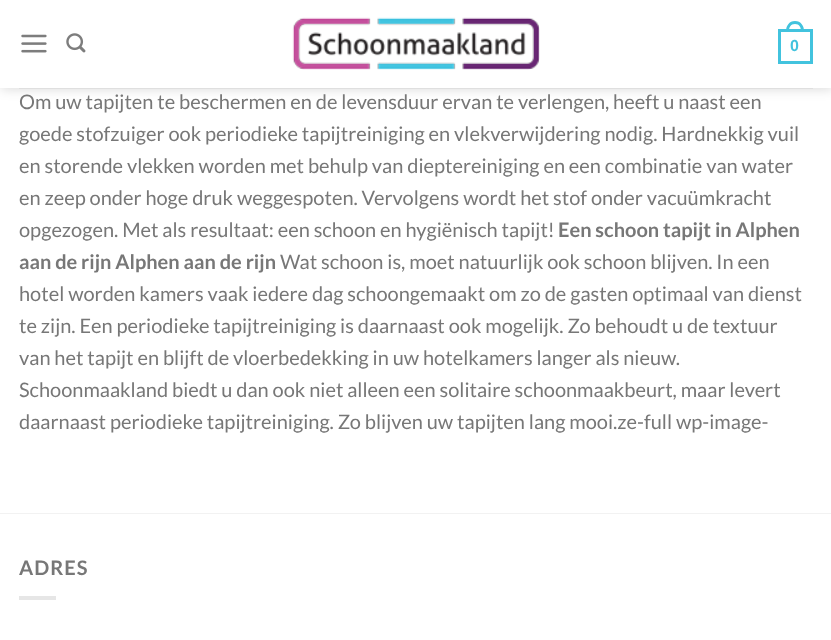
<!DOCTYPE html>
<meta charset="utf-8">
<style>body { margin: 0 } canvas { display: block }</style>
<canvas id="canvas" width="831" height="640"></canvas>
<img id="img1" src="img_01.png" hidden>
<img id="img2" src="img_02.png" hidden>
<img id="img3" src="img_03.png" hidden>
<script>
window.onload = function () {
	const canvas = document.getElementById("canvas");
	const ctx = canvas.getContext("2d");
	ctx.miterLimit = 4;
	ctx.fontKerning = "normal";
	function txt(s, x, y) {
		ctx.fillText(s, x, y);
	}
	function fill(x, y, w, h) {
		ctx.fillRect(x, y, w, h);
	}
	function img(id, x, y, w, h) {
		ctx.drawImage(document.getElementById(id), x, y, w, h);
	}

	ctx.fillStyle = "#FFFFFF";
	fill(0, 0, 831, 640);
	ctx.save();
	ctx.beginPath();
	ctx.moveTo(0, 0);
	ctx.lineTo(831, 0);
	ctx.lineTo(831, 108);
	ctx.lineTo(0, 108);
	ctx.closePath();
	ctx.moveTo(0, 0);
	ctx.lineTo(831, 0);
	ctx.lineTo(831, 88);
	ctx.lineTo(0, 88);
	ctx.closePath();
	ctx.clip("evenodd");
	ctx.fillStyle = "rgba(0, 0, 0, 0.15)";
	ctx.filter = "blur(6px)";
	ctx.beginPath();
	ctx.rect(1, 1, 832, 88);
	ctx.fill();
	ctx.filter = "none";
	ctx.restore();
	img("img1", 21, 34, 26, 19);
	img("img2", 66, 33, 20, 20);
	img("img3", 292, 17, 248, 53);
	ctx.strokeStyle = "#42C3DE";
	ctx.lineWidth = 3;
	ctx.strokeRect(779.5, 30.5, 32, 32);
	ctx.fillStyle = "#42C3DE";
	ctx.beginPath();
	ctx.moveTo(795, 21);
	ctx.bezierCurveTo(801, 21, 804, 26, 804, 31);
	ctx.lineTo(786, 31);
	ctx.bezierCurveTo(786, 26, 789, 21, 795, 21);
	ctx.closePath();
	ctx.moveTo(795, 24);
	ctx.bezierCurveTo(799.5, 24, 801, 27.5, 801, 31);
	ctx.lineTo(789, 31);
	ctx.bezierCurveTo(789, 27.5, 790.5, 24, 795, 24);
	ctx.closePath();
	ctx.fill("evenodd");
	ctx.fillStyle = "#DFDFDF";
	fill(19, 88, 794, 1);
	ctx.fillStyle = "rgba(255, 255, 255, 0.9)";
	fill(0, 87, 831, 1);
	ctx.fillStyle = "#F2F2F2";
	fill(0, 513, 831, 1);
	ctx.fillStyle = "#E6E6E6";
	fill(19, 596, 37, 4);
	ctx.font = "bold 16px Liberation Sans";
	ctx.fillStyle = "#42C3DE";
	txt("0", 790, 51);
	ctx.font = "20px Lato";
	ctx.fillStyle = "#777777";
	txt("Om uw tapijten te beschermen en de levensduur ervan te verlengen, heeft u naast een", 19, 109);
	txt("goede stofzuiger ook periodieke tapijtreiniging en vlekverwijdering nodig. Hardnekkig vuil", 19, 141);
	txt("en storende vlekken worden met behulp van dieptereiniging en een combinatie van water", 19, 173);
	txt("en zeep onder hoge druk weggespoten. Vervolgens wordt het stof onder vacuümkracht", 19, 205);
	txt("opgezogen. Met als resultaat: een schoon en hygiënisch tapijt!", 19, 237);
	ctx.font = "bold 20px Lato";
	txt("Een schoon tapijt in Alphen", 558, 237);
	txt("aan de rijn Alphen aan de rijn", 19, 269);
	ctx.font = "20px Lato";
	txt("Wat schoon is, moet natuurlijk ook schoon blijven. In een", 280, 269);
	txt("hotel worden kamers vaak iedere dag schoongemaakt om zo de gasten optimaal van dienst", 19, 301);
	txt("te zijn. Een periodieke tapijtreiniging is daarnaast ook mogelijk. Zo behoudt u de textuur", 19, 333);
	txt("van het tapijt en blijft de vloerbedekking in uw hotelkamers langer als nieuw.", 19, 365);
	txt("Schoonmaakland biedt u dan ook niet alleen een solitaire schoonmaakbeurt, maar levert", 19, 397);
	txt("daarnaast periodieke tapijtreiniging. Zo blijven uw tapijten lang mooi.ze-full wp-image-", 19, 429);
	ctx.letterSpacing = "1px";
	ctx.font = "bold 20px Lato";
	txt("ADRES", 19, 575);
};
</script>
